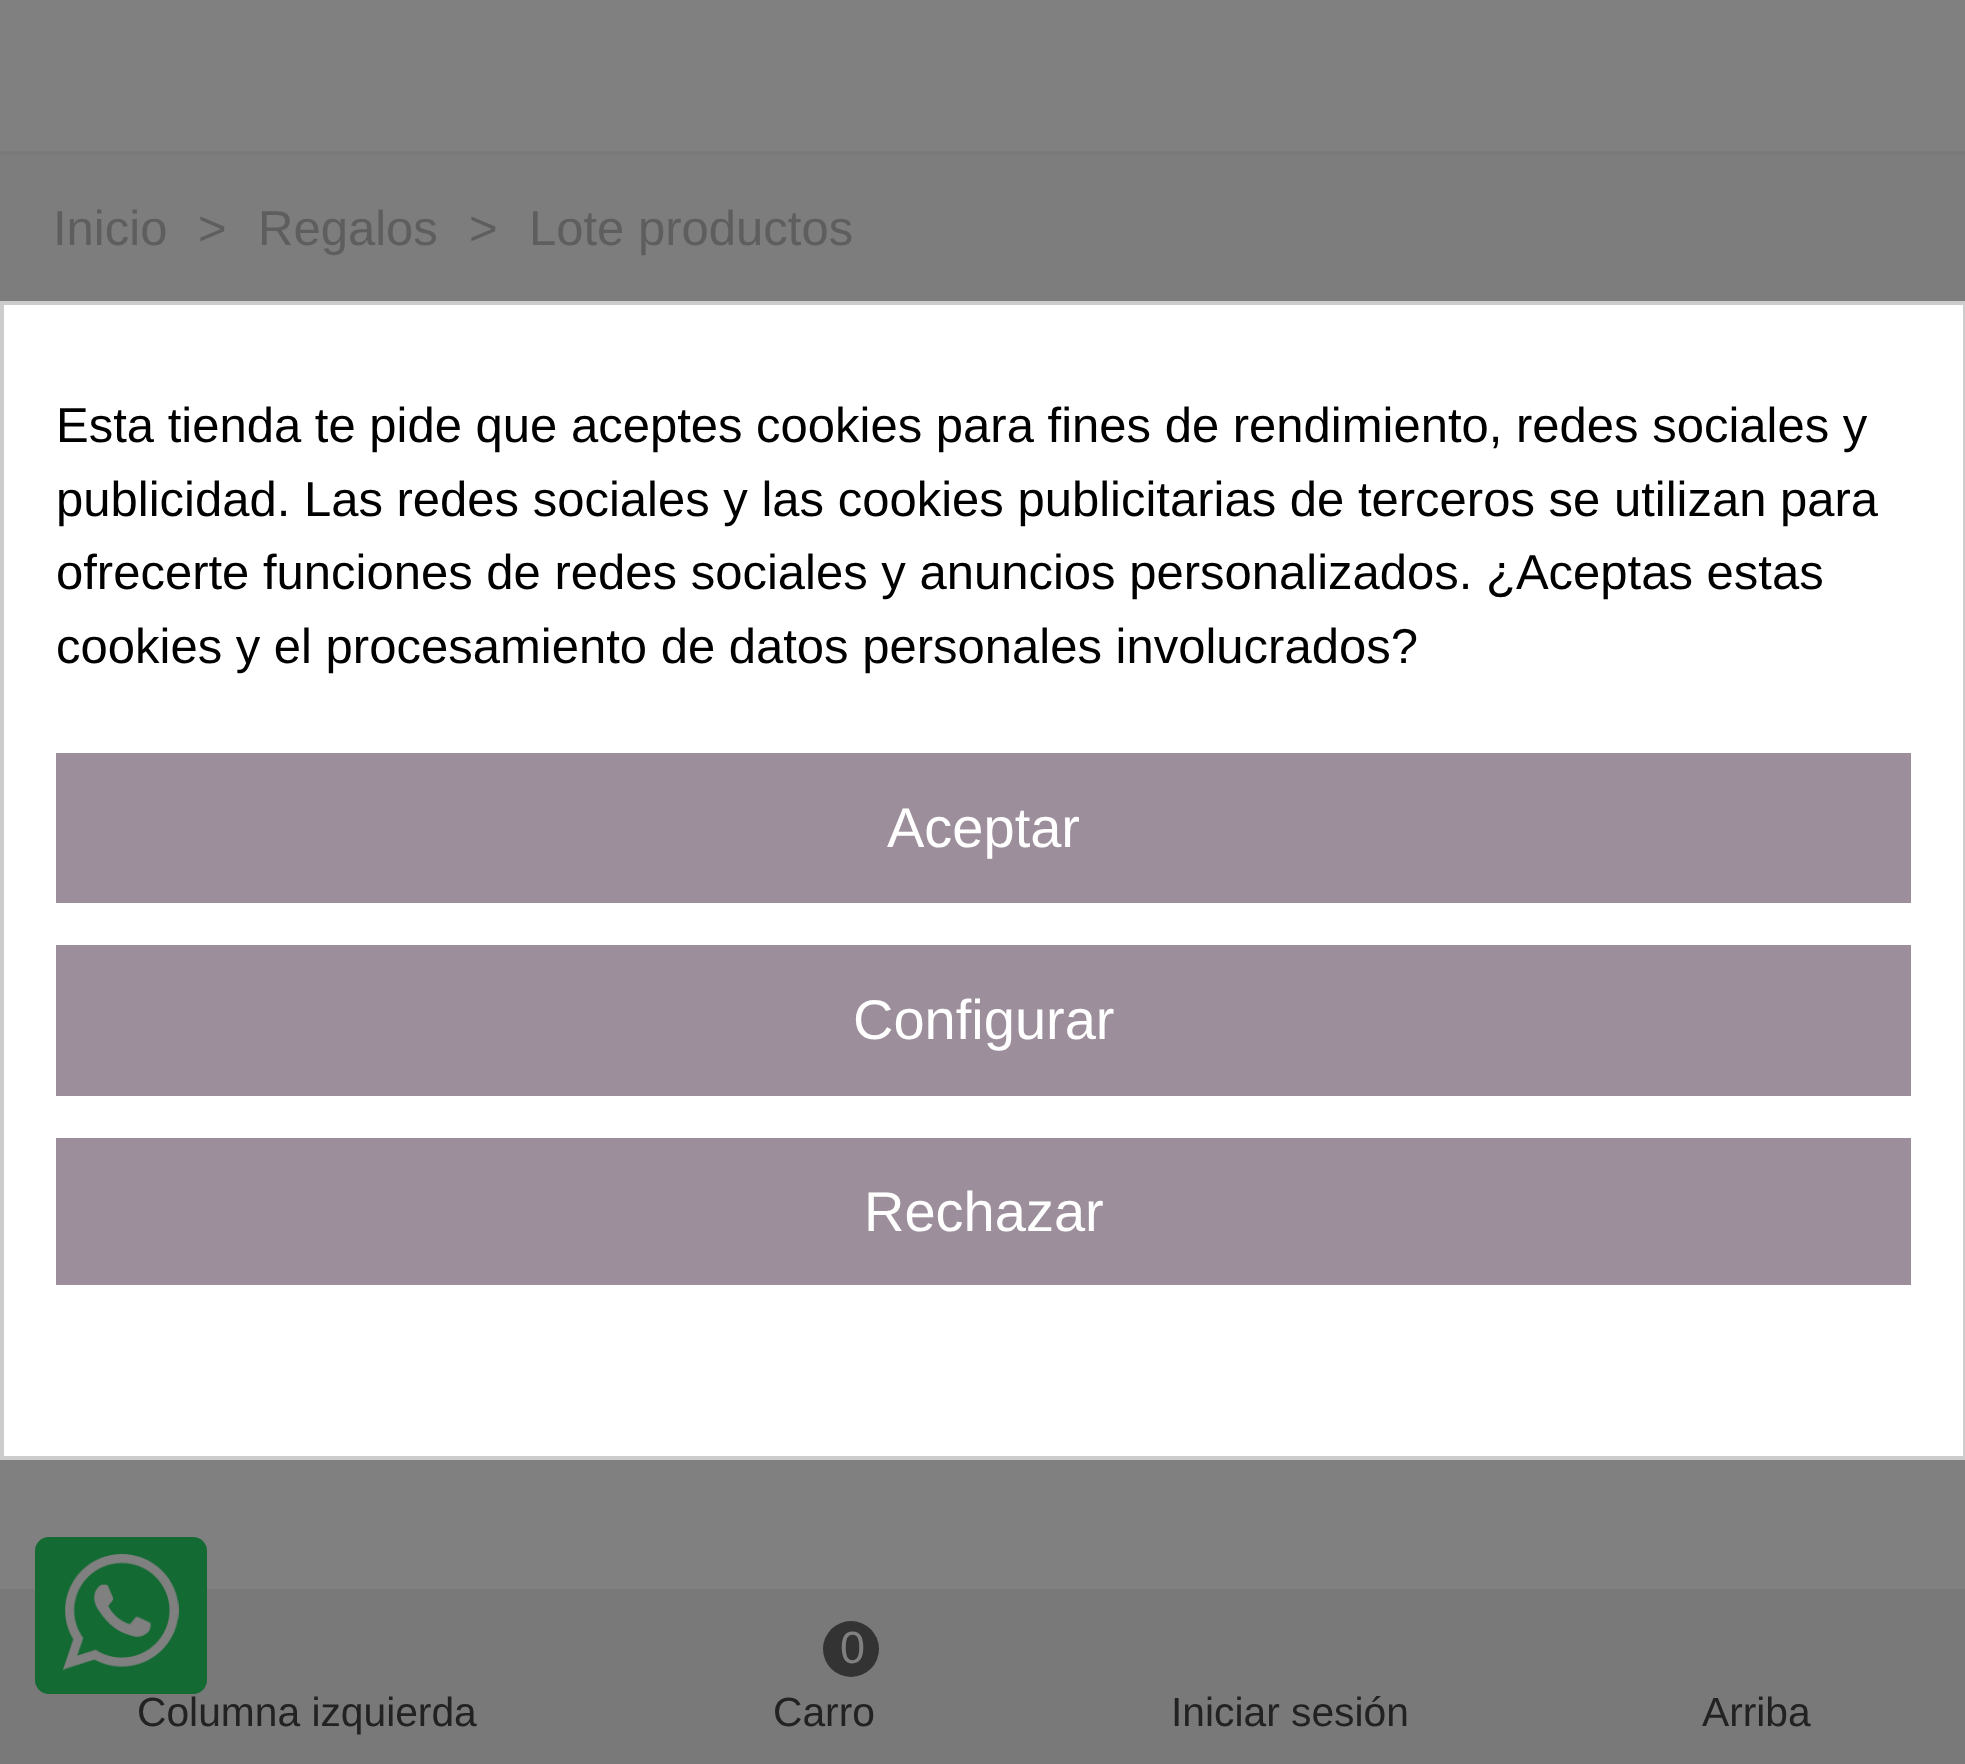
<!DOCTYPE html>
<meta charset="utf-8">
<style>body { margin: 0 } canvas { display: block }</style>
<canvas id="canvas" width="1965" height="1764"></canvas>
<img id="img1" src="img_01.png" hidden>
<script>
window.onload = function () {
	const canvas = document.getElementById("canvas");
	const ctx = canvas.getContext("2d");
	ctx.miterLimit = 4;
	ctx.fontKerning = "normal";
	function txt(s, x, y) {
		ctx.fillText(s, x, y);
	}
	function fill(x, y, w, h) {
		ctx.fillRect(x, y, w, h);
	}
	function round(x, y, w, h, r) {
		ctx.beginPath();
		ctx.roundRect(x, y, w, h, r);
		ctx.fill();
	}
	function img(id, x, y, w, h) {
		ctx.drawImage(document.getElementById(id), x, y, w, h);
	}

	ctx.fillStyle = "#808080";
	fill(0, 0, 1965, 1764);
	ctx.fillStyle = "#7D7D7D";
	fill(0, 155, 1965, 146);
	ctx.fillStyle = "#7A7A7A";
	fill(0, 151, 1965, 4);
	ctx.fillStyle = "#797979";
	fill(0, 1589, 1965, 175);
	ctx.fillStyle = "#333333";
	ctx.beginPath();
	ctx.arc(851, 1649, 28, 0, Math.PI * 2);
	ctx.fill();
	ctx.fillStyle = "#FFFFFF";
	ctx.beginPath();
	ctx.rect(2, 303, 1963, 1155);
	ctx.fill();
	ctx.strokeStyle = "#CCCCCC";
	ctx.lineWidth = 4;
	ctx.stroke();
	ctx.fillStyle = "#9D8E9C";
	fill(56, 753, 1855, 150);
	fill(56, 945, 1855, 151);
	fill(56, 1138, 1855, 147);
	ctx.fillStyle = "#136A33";
	round(35, 1537, 172, 157, 14);
	img("img1", 63, 1554, 116, 116);
	ctx.font = "49px Liberation Sans";
	ctx.fillStyle = "#5E5E5E";
	txt("Inicio", 53, 245);
	txt(">", 198, 245);
	txt("Regalos", 258, 245);
	txt(">", 469, 245);
	txt("Lote productos", 529, 245);
	ctx.font = "40.75px Liberation Sans";
	ctx.fillStyle = "#222222";
	txt("Columna izquierda", 137, 1726);
	ctx.font = "45px Liberation Sans";
	ctx.fillStyle = "#808080";
	txt("0", 840, 1663);
	ctx.font = "40.75px Liberation Sans";
	ctx.fillStyle = "#222222";
	txt("Carro", 773, 1726);
	txt("Iniciar sesión", 1171, 1726);
	txt("Arriba", 1702, 1726);
	ctx.font = "49px Liberation Sans";
	ctx.fillStyle = "#000000";
	txt("Esta tienda te pide que aceptes cookies para fines de rendimiento, redes sociales y", 56, 442);
	txt("publicidad. Las redes sociales y las cookies publicitarias de terceros se utilizan para", 56, 516);
	txt("ofrecerte funciones de redes sociales y anuncios personalizados. ¿Aceptas estas", 56, 589);
	txt("cookies y el procesamiento de datos personales involucrados?", 56, 663);
	ctx.font = "56px Liberation Sans";
	ctx.fillStyle = "#FFFFFF";
	txt("Aceptar", 887, 847);
	txt("Configurar", 853, 1039);
	txt("Rechazar", 864, 1231);
};
</script>
